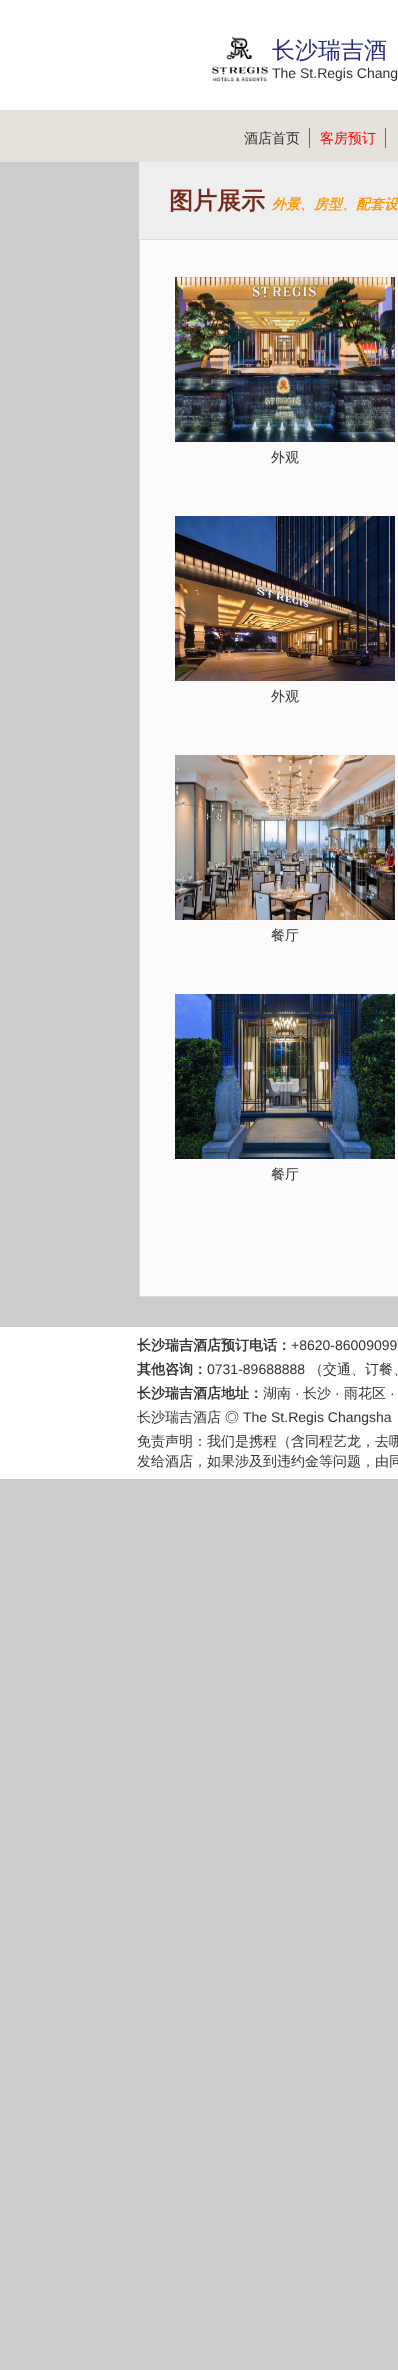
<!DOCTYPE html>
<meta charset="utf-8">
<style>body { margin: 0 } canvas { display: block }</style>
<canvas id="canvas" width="398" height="2370"></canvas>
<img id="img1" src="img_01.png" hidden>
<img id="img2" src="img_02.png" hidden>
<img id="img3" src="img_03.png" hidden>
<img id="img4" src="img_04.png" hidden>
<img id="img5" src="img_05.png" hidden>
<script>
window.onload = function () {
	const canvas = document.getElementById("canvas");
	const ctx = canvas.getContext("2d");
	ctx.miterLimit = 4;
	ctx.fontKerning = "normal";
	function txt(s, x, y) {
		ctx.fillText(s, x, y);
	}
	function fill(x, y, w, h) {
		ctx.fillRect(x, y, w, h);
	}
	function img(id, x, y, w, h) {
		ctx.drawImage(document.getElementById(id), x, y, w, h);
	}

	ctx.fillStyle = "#CCCCCC";
	fill(0, 0, 398, 2370);
	ctx.fillStyle = "#FFFFFF";
	fill(0, 0, 398, 110);
	img("img1", 211, 36, 58, 46);
	ctx.fillStyle = "#E6E1DA";
	fill(0, 110, 398, 52);
	ctx.fillStyle = "#73614E";
	fill(309, 128, 1, 20);
	fill(385, 128, 1, 20);
	ctx.fillStyle = "#EEEEEE";
	fill(139, 162, 259, 77);
	ctx.fillStyle = "#FCFAFA";
	ctx.beginPath();
	ctx.rect(139.5, 239.5, 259, 1057);
	ctx.fill();
	ctx.strokeStyle = "#DCDCDC";
	ctx.stroke();
	img("img2", 175, 277, 220, 165);
	img("img3", 175, 516, 220, 165);
	img("img4", 175, 755, 220, 165);
	img("img5", 175, 994, 220, 165);
	ctx.fillStyle = "#FFFFFF";
	fill(0, 1327, 398, 152);
	ctx.font = "500 23px WenQuanYi Zen Hei";
	ctx.fillStyle = "#292E7F";
	txt("长沙瑞吉酒", 272, 58);
	ctx.font = "14px Liberation Sans";
	ctx.fillStyle = "#333333";
	txt("The St.Regis Chang", 272, 78);
	ctx.font = "500 14px WenQuanYi Zen Hei";
	txt("酒店首页", 244, 143);
	ctx.fillStyle = "#FF0000";
	txt("客房预订", 320, 143);
	ctx.font = "bold 24px WenQuanYi Zen Hei";
	ctx.fillStyle = "#732B1D";
	txt("图片展示", 169, 209);
	ctx.font = "italic bold 14px WenQuanYi Zen Hei";
	ctx.fillStyle = "#FF9600";
	txt("外景、房型、配套设", 272, 209);
	ctx.font = "500 14px WenQuanYi Zen Hei";
	ctx.fillStyle = "#333333";
	txt("外观", 271, 462);
	txt("外观", 271, 701);
	txt("餐厅", 271, 940);
	txt("餐厅", 271, 1179);
	ctx.font = "bold 14px WenQuanYi Zen Hei";
	txt("长沙瑞吉酒店预订电话：", 137, 1350);
	ctx.font = "14px Liberation Sans";
	txt("+8620-86009099", 291, 1350);
	ctx.font = "bold 14px WenQuanYi Zen Hei";
	txt("其他咨询：", 137, 1374);
	ctx.font = "14px Liberation Sans";
	txt("0731-89688888", 207, 1374);
	ctx.font = "500 14px WenQuanYi Zen Hei";
	txt("（交通、订餐、", 309, 1374);
	ctx.font = "bold 14px WenQuanYi Zen Hei";
	txt("长沙瑞吉酒店地址：", 137, 1398);
	ctx.font = "500 14px WenQuanYi Zen Hei";
	txt("湖南", 263, 1398);
	ctx.font = "14px Liberation Sans";
	txt("·", 295, 1398);
	ctx.font = "500 14px WenQuanYi Zen Hei";
	txt("长沙", 303, 1398);
	ctx.font = "14px Liberation Sans";
	txt("·", 335, 1398);
	ctx.font = "500 14px WenQuanYi Zen Hei";
	txt("雨花区", 344, 1398);
	ctx.font = "14px Liberation Sans";
	txt("·", 390, 1398);
	ctx.font = "500 14px WenQuanYi Zen Hei";
	txt("长沙瑞吉酒店", 137, 1422);
	txt("◎", 225, 1422);
	ctx.font = "14px Liberation Sans";
	txt("The St.Regis Changsha", 243, 1422);
	ctx.font = "500 14px WenQuanYi Zen Hei";
	txt("免责声明：我们是携程（含同程艺龙，去哪", 137, 1446);
	txt("发给酒店，如果涉及到违约金等问题，由同", 137, 1466);
};
</script>
